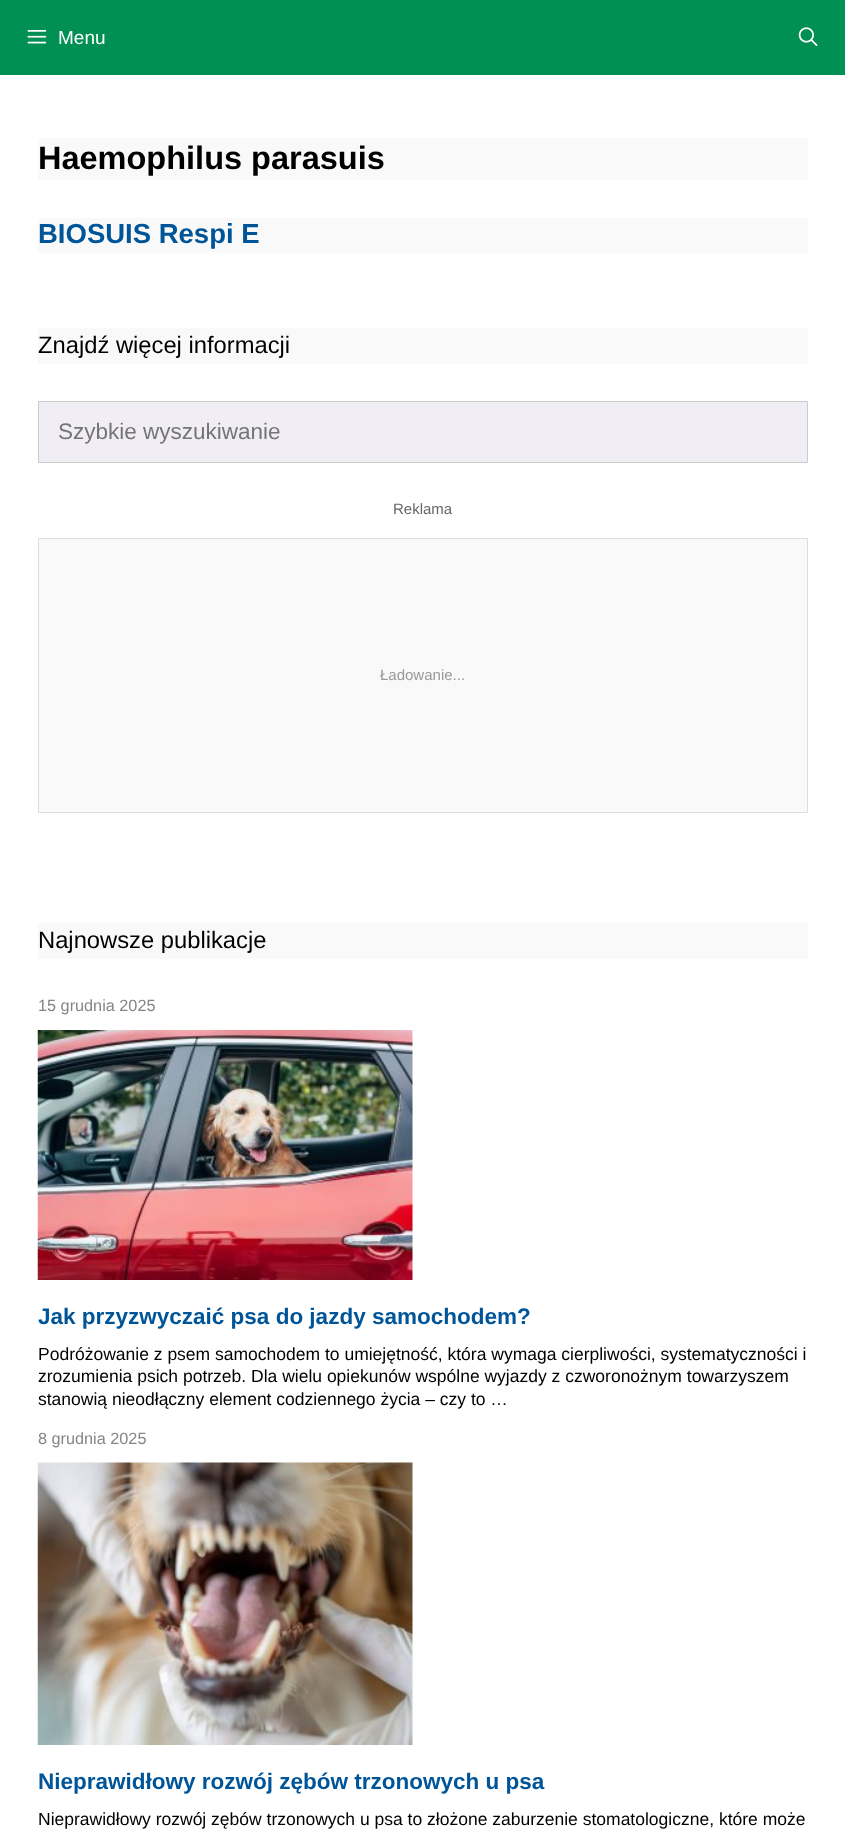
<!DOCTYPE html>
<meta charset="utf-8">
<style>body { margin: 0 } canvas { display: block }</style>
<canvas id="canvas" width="845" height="1839"></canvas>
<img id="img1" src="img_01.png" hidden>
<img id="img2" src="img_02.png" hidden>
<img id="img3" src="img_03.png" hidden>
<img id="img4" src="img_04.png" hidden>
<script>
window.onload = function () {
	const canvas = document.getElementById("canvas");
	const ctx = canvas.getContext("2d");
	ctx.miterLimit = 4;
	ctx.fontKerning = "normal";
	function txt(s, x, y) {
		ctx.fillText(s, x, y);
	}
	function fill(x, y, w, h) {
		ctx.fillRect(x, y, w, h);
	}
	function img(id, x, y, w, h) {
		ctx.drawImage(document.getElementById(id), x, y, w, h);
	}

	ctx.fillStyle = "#FFFFFF";
	fill(0, 0, 845, 1839);
	ctx.fillStyle = "#019053";
	fill(0, 0, 845, 75);
	img("img1", 27, 30, 20, 14);
	img("img2", 798, 27, 20, 19);
	ctx.fillStyle = "#F9F9F9";
	fill(38, 138, 770, 42);
	fill(38, 218, 770, 35);
	fill(38, 328, 770, 36);
	ctx.fillStyle = "#F1EDF4";
	ctx.beginPath();
	ctx.rect(38.5, 401.5, 769, 61);
	ctx.fill();
	ctx.strokeStyle = "#CCCCCC";
	ctx.stroke();
	ctx.fillStyle = "#F9F9F9";
	ctx.beginPath();
	ctx.rect(38.5, 538.5, 769, 274);
	ctx.fill();
	ctx.strokeStyle = "#DDDDDD";
	ctx.stroke();
	fill(38, 923, 770, 36);
	img("img3", 37, 1030, 376, 250);
	img("img4", 37, 1462, 376, 283);
	ctx.font = "19px Liberation Sans";
	ctx.fillStyle = "#FFFFFF";
	txt("Menu", 58, 44);
	ctx.font = "bold 32.5px Liberation Sans";
	ctx.fillStyle = "#000000";
	txt("Haemophilus parasuis", 38, 169);
	ctx.font = "bold 27.5px Liberation Sans";
	ctx.fillStyle = "#005599";
	txt("BIOSUIS Respi E", 38, 243);
	ctx.font = "23.75px Liberation Sans";
	ctx.fillStyle = "#000000";
	txt("Znajdź więcej informacji", 38, 353);
	ctx.font = "22.5px Liberation Sans";
	ctx.fillStyle = "#757575";
	txt("Szybkie wyszukiwanie", 58, 439);
	ctx.font = "15px Liberation Sans";
	ctx.fillStyle = "#666666";
	txt("Reklama", 393, 514);
	ctx.fillStyle = "#999999";
	txt("Ładowanie...", 380, 680);
	ctx.font = "23.75px Liberation Sans";
	ctx.fillStyle = "#000000";
	txt("Najnowsze publikacje", 38, 948);
	ctx.font = "16.25px Liberation Sans";
	ctx.fillStyle = "#858585";
	txt("15 grudnia 2025", 38, 1011);
	ctx.font = "bold 22.5px Liberation Sans";
	ctx.fillStyle = "#005599";
	txt("Jak przyzwyczaić psa do jazdy samochodem?", 38, 1324);
	ctx.font = "17.5px Liberation Sans";
	ctx.fillStyle = "#000000";
	txt("Podróżowanie z psem samochodem to umiejętność, która wymaga cierpliwości, systematyczności i", 38, 1360);
	txt("zrozumienia psich potrzeb. Dla wielu opiekunów wspólne wyjazdy z czworonożnym towarzyszem", 38, 1382);
	txt("stanowią nieodłączny element codziennego życia – czy to …", 38, 1405);
	ctx.font = "16.25px Liberation Sans";
	ctx.fillStyle = "#858585";
	txt("8 grudnia 2025", 38, 1444);
	ctx.font = "bold 22.5px Liberation Sans";
	ctx.fillStyle = "#005599";
	txt("Nieprawidłowy rozwój zębów trzonowych u psa", 38, 1789);
	ctx.font = "17.5px Liberation Sans";
	ctx.fillStyle = "#000000";
	txt("Nieprawidłowy rozwój zębów trzonowych u psa to złożone zaburzenie stomatologiczne, które może", 38, 1825);
};
</script>
